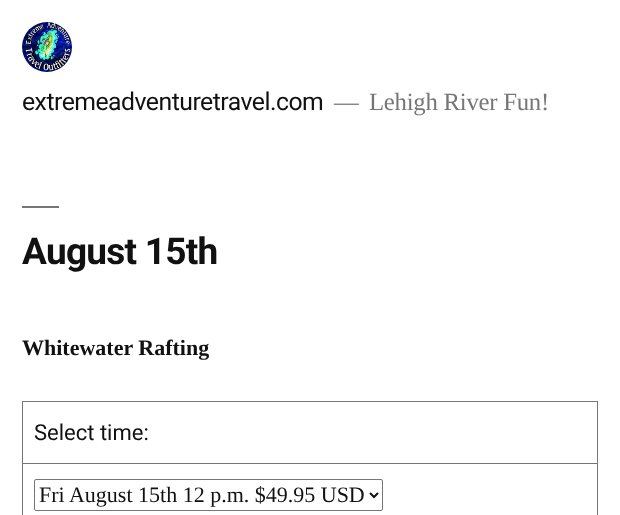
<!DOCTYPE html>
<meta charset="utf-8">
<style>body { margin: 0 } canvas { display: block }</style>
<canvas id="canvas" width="620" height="515"></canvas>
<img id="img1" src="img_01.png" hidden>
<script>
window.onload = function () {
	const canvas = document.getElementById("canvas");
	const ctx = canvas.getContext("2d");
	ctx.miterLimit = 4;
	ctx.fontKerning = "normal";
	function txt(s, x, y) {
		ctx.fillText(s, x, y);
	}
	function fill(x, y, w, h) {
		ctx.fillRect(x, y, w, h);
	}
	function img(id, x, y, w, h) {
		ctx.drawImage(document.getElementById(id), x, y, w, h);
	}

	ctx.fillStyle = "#FFFFFF";
	fill(0, 0, 620, 515);
	img("img1", 22, 22, 50, 50);
	ctx.fillStyle = "#767676";
	fill(22, 206, 37, 2);
	fill(22, 401, 576, 1);
	fill(22, 463, 576, 1);
	fill(597, 463, 1, 52);
	fill(597, 401, 1, 63);
	fill(22, 463, 1, 52);
	fill(22, 401, 1, 63);
	ctx.beginPath();
	ctx.roundRect(34.5, 479.5, 348, 31, 1.5);
	ctx.strokeStyle = "#767676";
	ctx.stroke();
	ctx.beginPath();
	ctx.moveTo(370, 493);
	ctx.lineTo(374, 497);
	ctx.lineTo(378, 493);
	ctx.strokeStyle = "#111111";
	ctx.lineWidth = 2;
	ctx.stroke();
	ctx.letterSpacing = "-0.5px";
	ctx.font = "24.75px Roboto";
	ctx.fillStyle = "#111111";
	txt("extremeadventuretravel.com", 22, 110);
	ctx.letterSpacing = "-0.25px";
	ctx.font = "24.75px Liberation Serif";
	ctx.fillStyle = "#767676";
	txt("—", 334, 110);
	txt("Lehigh River Fun!", 369, 110);
	ctx.letterSpacing = "-0.75px";
	ctx.font = "bold 37px Roboto";
	ctx.fillStyle = "#111111";
	txt("August 15th", 22, 264);
	ctx.letterSpacing = "0px";
	ctx.font = "bold 22px Liberation Serif";
	txt("Whitewater Rafting", 22, 355);
	ctx.font = "22px Roboto";
	txt("Select time:", 34, 440);
	ctx.font = "22px Liberation Serif";
	txt("Fri August 15th 12 p.m. $49.95 USD", 39, 502);
};
</script>
